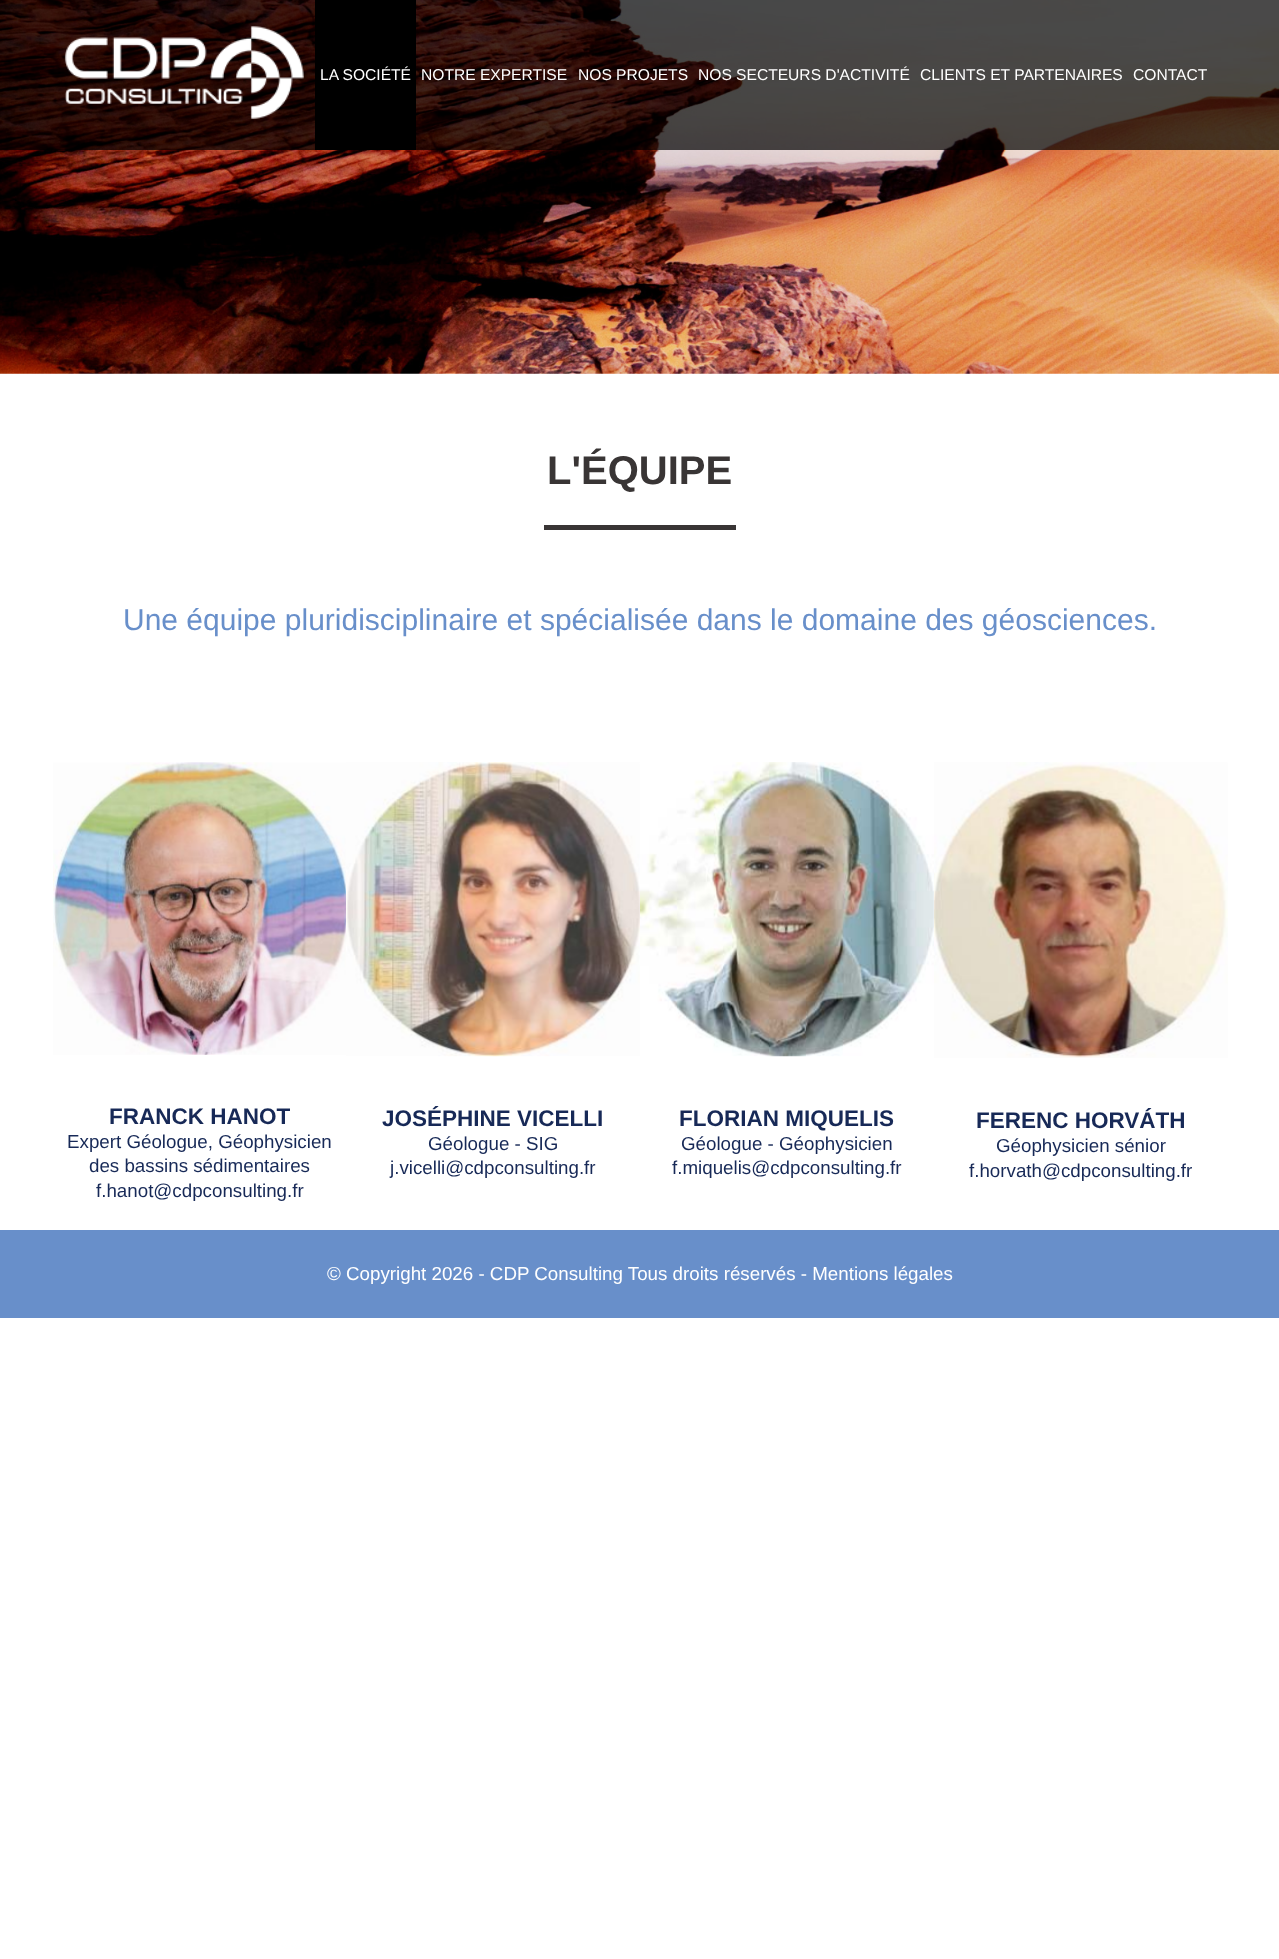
<!DOCTYPE html>
<meta charset="utf-8">
<style>body { margin: 0 } canvas { display: block }</style>
<canvas id="canvas" width="1279" height="1959"></canvas>
<img id="img1" src="img_02.png" hidden>
<img id="img2" src="img_01.png" hidden>
<img id="img3" src="img_03.png" hidden>
<img id="img4" src="img_04.png" hidden>
<img id="img5" src="img_05.png" hidden>
<img id="img6" src="img_06.png" hidden>
<script>
window.onload = function () {
	const canvas = document.getElementById("canvas");
	const ctx = canvas.getContext("2d");
	ctx.miterLimit = 4;
	ctx.fontKerning = "normal";
	function txt(s, x, y) {
		ctx.fillText(s, x, y);
	}
	function fill(x, y, w, h) {
		ctx.fillRect(x, y, w, h);
	}
	function img(id, x, y, w, h) {
		ctx.drawImage(document.getElementById(id), x, y, w, h);
	}

	ctx.fillStyle = "#FFFFFF";
	fill(0, 0, 1279, 1959);
	img("img1", 0, 0, 1279, 374);
	ctx.fillStyle = "rgba(0, 0, 0, 0.7)";
	fill(0, 0, 1279, 150);
	img("img2", 64, 26, 240, 93);
	ctx.fillStyle = "#000000";
	fill(315, 0, 101, 150);
	ctx.fillStyle = "#393535";
	fill(544, 525, 192, 5);
	img("img3", 53, 762, 294, 293);
	img("img4", 346, 762, 294, 295);
	img("img5", 640, 762, 294, 295);
	img("img6", 934, 762, 294, 296);
	ctx.fillStyle = "#688FCA";
	fill(0, 1230, 1279, 88);
	ctx.font = "15.6px Liberation Sans";
	ctx.fillStyle = "#FFFFFF";
	txt("LA SOCIÉTÉ", 320, 80);
	txt("NOTRE EXPERTISE", 421, 80);
	txt("NOS PROJETS", 578, 80);
	txt("NOS SECTEURS D'ACTIVITÉ", 698, 80);
	txt("CLIENTS ET PARTENAIRES", 920, 80);
	txt("CONTACT", 1133, 80);
	ctx.font = "bold 40px Liberation Sans";
	ctx.fillStyle = "#393535";
	txt("L'ÉQUIPE", 547, 484);
	ctx.font = "30px Liberation Sans";
	ctx.fillStyle = "#688FCA";
	txt("Une équipe pluridisciplinaire et spécialisée dans le domaine des géosciences.", 123, 630);
	ctx.font = "bold 22.5px Liberation Sans";
	ctx.fillStyle = "#172957";
	txt("FRANCK HANOT", 109, 1124);
	ctx.font = "18.75px Liberation Sans";
	txt("Expert Géologue, Géophysicien", 67, 1148);
	txt("des bassins sédimentaires", 89, 1172);
	txt("f.hanot@cdpconsulting.fr", 96, 1197);
	ctx.font = "bold 22.5px Liberation Sans";
	txt("JOSÉPHINE VICELLI", 382, 1126);
	ctx.font = "18.75px Liberation Sans";
	txt("Géologue - SIG", 428, 1150);
	txt("j.vicelli@cdpconsulting.fr", 390, 1174);
	ctx.font = "bold 22.5px Liberation Sans";
	txt("FLORIAN MIQUELIS", 679, 1126);
	ctx.font = "18.75px Liberation Sans";
	txt("Géologue - Géophysicien", 681, 1150);
	txt("f.miquelis@cdpconsulting.fr", 672, 1174);
	ctx.font = "bold 22.5px Liberation Sans";
	txt("FERENC HORVÁTH", 976, 1128);
	ctx.font = "18.75px Liberation Sans";
	txt("Géophysicien sénior", 996, 1152);
	txt("f.horvath@cdpconsulting.fr", 969, 1177);
	ctx.fillStyle = "#FFFFFF";
	txt("© Copyright 2026 - CDP Consulting Tous droits réservés - Mentions légales", 327, 1280);
};
</script>
